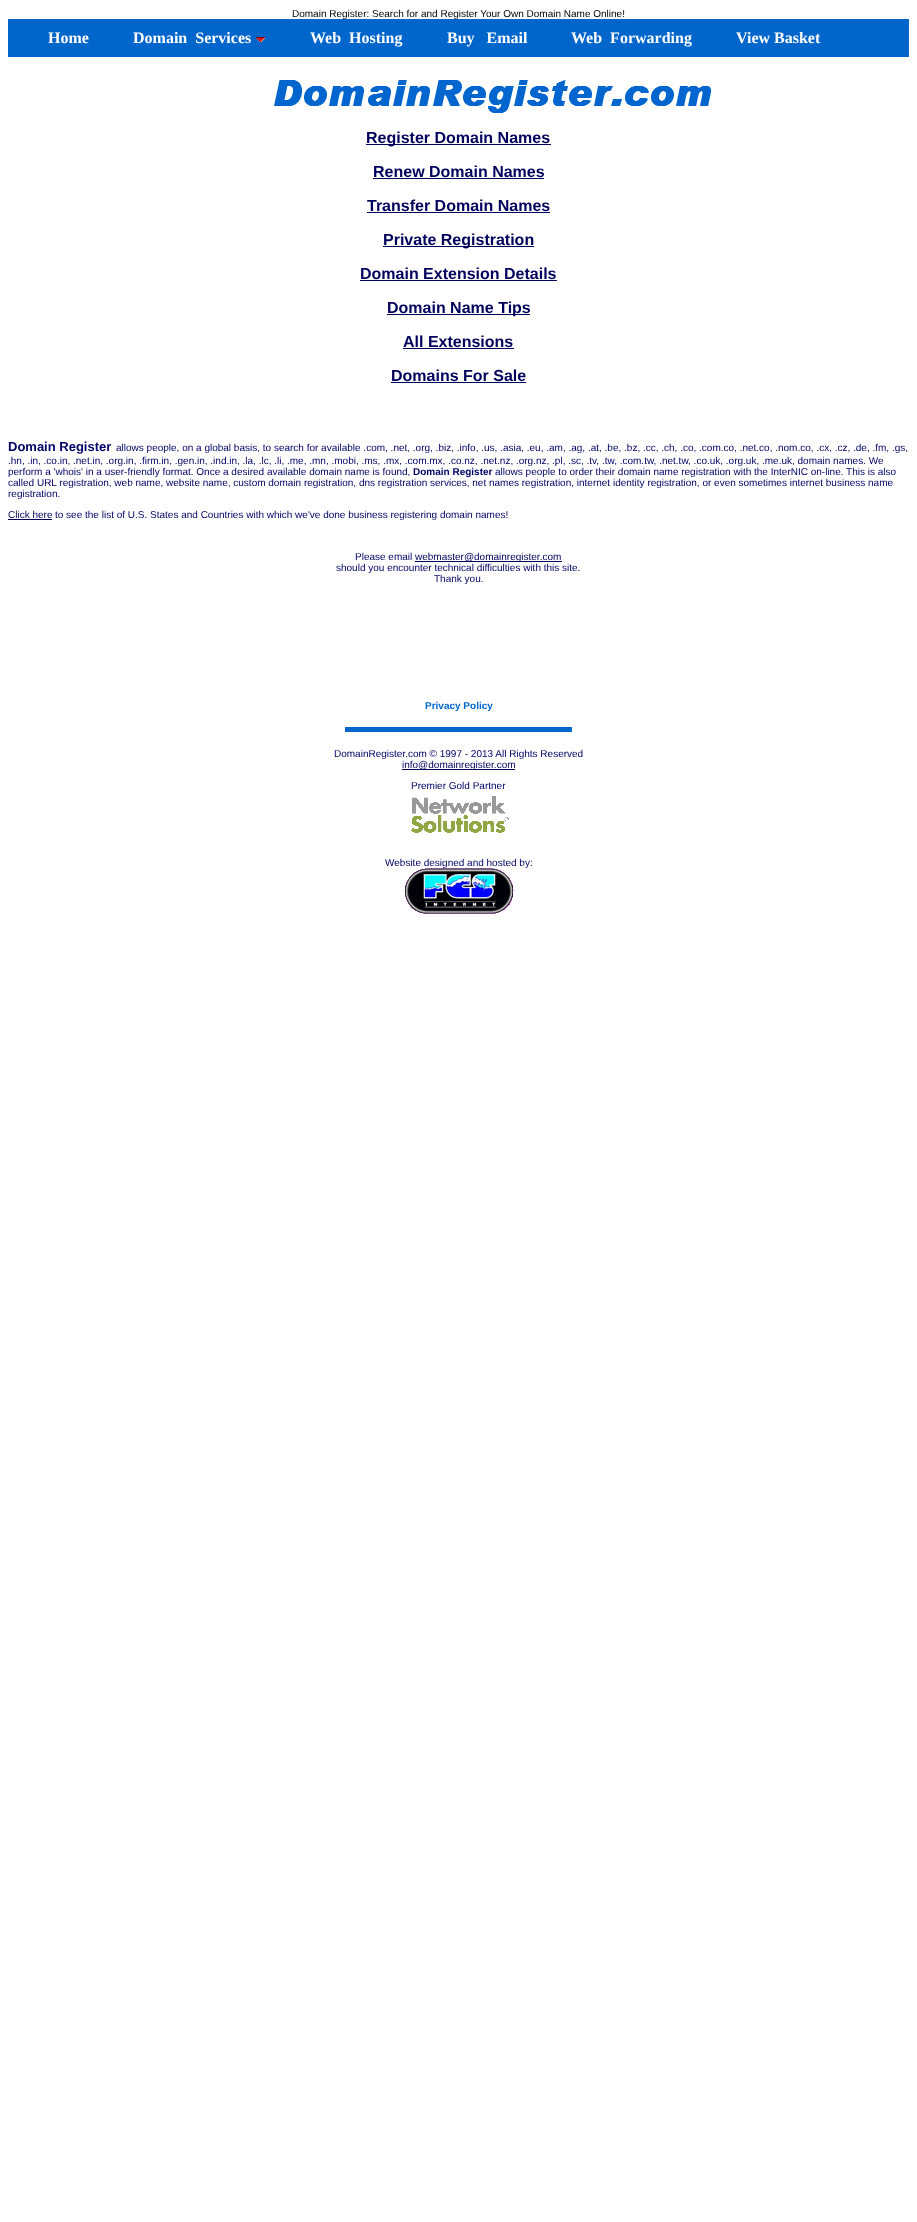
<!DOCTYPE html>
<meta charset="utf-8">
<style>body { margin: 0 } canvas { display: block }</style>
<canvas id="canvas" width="917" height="2222"></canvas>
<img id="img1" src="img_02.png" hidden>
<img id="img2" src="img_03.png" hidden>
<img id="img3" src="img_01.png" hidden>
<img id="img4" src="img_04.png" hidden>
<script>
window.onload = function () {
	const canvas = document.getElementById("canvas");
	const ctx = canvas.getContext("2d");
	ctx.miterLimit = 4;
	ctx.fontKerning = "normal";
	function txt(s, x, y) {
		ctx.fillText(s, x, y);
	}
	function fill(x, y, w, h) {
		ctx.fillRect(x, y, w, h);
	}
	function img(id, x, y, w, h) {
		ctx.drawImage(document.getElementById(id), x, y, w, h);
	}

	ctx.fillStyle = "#FFFFFF";
	fill(0, 0, 917, 2222);
	img("img1", 274, 80, 438, 33);
	ctx.fillStyle = "#00005C";
	fill(366, 144, 185, 1);
	fill(373, 178, 171, 1);
	fill(367, 212, 183, 1);
	fill(383, 246, 151, 1);
	fill(360, 280, 197, 1);
	fill(387, 314, 143, 1);
	fill(403, 348, 111, 1);
	fill(391, 382, 135, 1);
	fill(8, 519, 44, 1);
	fill(415, 561, 147, 1);
	ctx.fillStyle = "#0066CC";
	fill(345, 727, 227, 5);
	ctx.fillStyle = "#00005C";
	fill(402, 769, 113, 1);
	img("img2", 411, 796, 98, 37);
	ctx.font = "10px Liberation Sans";
	ctx.fillStyle = "#000000";
	txt("Domain Register: Search for and Register Your Own Domain Name Online!", 292, 17);
	ctx.fillStyle = "#0066CC";
	fill(8, 19, 901, 38);
	ctx.font = "bold 16px Liberation Serif";
	ctx.fillStyle = "#FFFFFF";
	txt("Home", 48, 43);
	txt("Domain  Services", 133, 43);
	img("img3", 256, 37, 9, 5);
	txt("Web  Hosting", 310, 43);
	txt("Buy   Email", 447, 43);
	txt("Web  Forwarding", 571, 43);
	txt("View Basket", 736, 43);
	ctx.font = "bold 16px Liberation Sans";
	ctx.fillStyle = "#00005C";
	txt("Register Domain Names", 366, 143);
	txt("Renew Domain Names", 373, 177);
	txt("Transfer Domain Names", 367, 211);
	txt("Private Registration", 383, 245);
	txt("Domain Extension Details", 360, 279);
	txt("Domain Name Tips", 387, 313);
	txt("All Extensions", 403, 347);
	txt("Domains For Sale", 391, 381);
	ctx.font = "bold 13px Liberation Sans";
	ctx.fillStyle = "#000066";
	txt("Domain Register", 8, 451);
	ctx.font = "10px Liberation Sans";
	txt("allows people, on a global basis, to search for available .com, .net, .org, .biz, .info, .us, .asia, .eu, .am, .ag, .at, .be, .bz, .cc, .ch, .co, .com.co, .net.co, .nom.co, .cx, .cz, .de, .fm, .gs,", 116, 451);
	txt(".hn, .in, .co.in, .net.in, .org.in, .firm.in, .gen.in, .ind.in, .la, .lc, .li, .me, .mn, .mobi, .ms, .mx, .com.mx, .co.nz, .net.nz, .org.nz, .pl, .sc, .tv, .tw, .com.tw, .net.tw, .co.uk, .org.uk, .me.uk, domain names. We", 8, 464);
	txt("perform a 'whois' in a user-friendly format. Once a desired available domain name is found,", 8, 475);
	ctx.font = "bold 10px Liberation Sans";
	txt("Domain Register", 413, 475);
	ctx.font = "10px Liberation Sans";
	txt("allows people to order their domain name registration with the InterNIC on-line. This is also", 495, 475);
	txt("called URL registration, web name, website name, custom domain registration, dns registration services, net names registration, internet identity registration, or even sometimes internet business name", 8, 486);
	txt("registration.", 8, 497);
	ctx.fillStyle = "#00005C";
	txt("Click here", 8, 518);
	ctx.fillStyle = "#000066";
	txt("to see the list of U.S. States and Countries with which we've done business registering domain names!", 55, 518);
	txt("Please email", 355, 560);
	ctx.fillStyle = "#00005C";
	txt("webmaster@domainregister.com", 415, 560);
	ctx.fillStyle = "#000066";
	txt("should you encounter technical difficulties with this site.", 336, 571);
	txt("Thank you.", 434, 582);
	ctx.font = "bold 10px Liberation Sans";
	ctx.fillStyle = "#0066CC";
	txt("Privacy Policy", 425, 709);
	ctx.font = "10px Liberation Sans";
	ctx.fillStyle = "#000066";
	txt("DomainRegister.com © 1997 - 2013 All Rights Reserved", 334, 757);
	ctx.fillStyle = "#00005C";
	txt("info@domainregister.com", 402, 768);
	ctx.fillStyle = "#000066";
	txt("Premier Gold Partner", 411, 789);
	txt("Website designed and hosted by:", 385, 866);
	img("img4", 405, 868, 109, 46);
};
</script>
